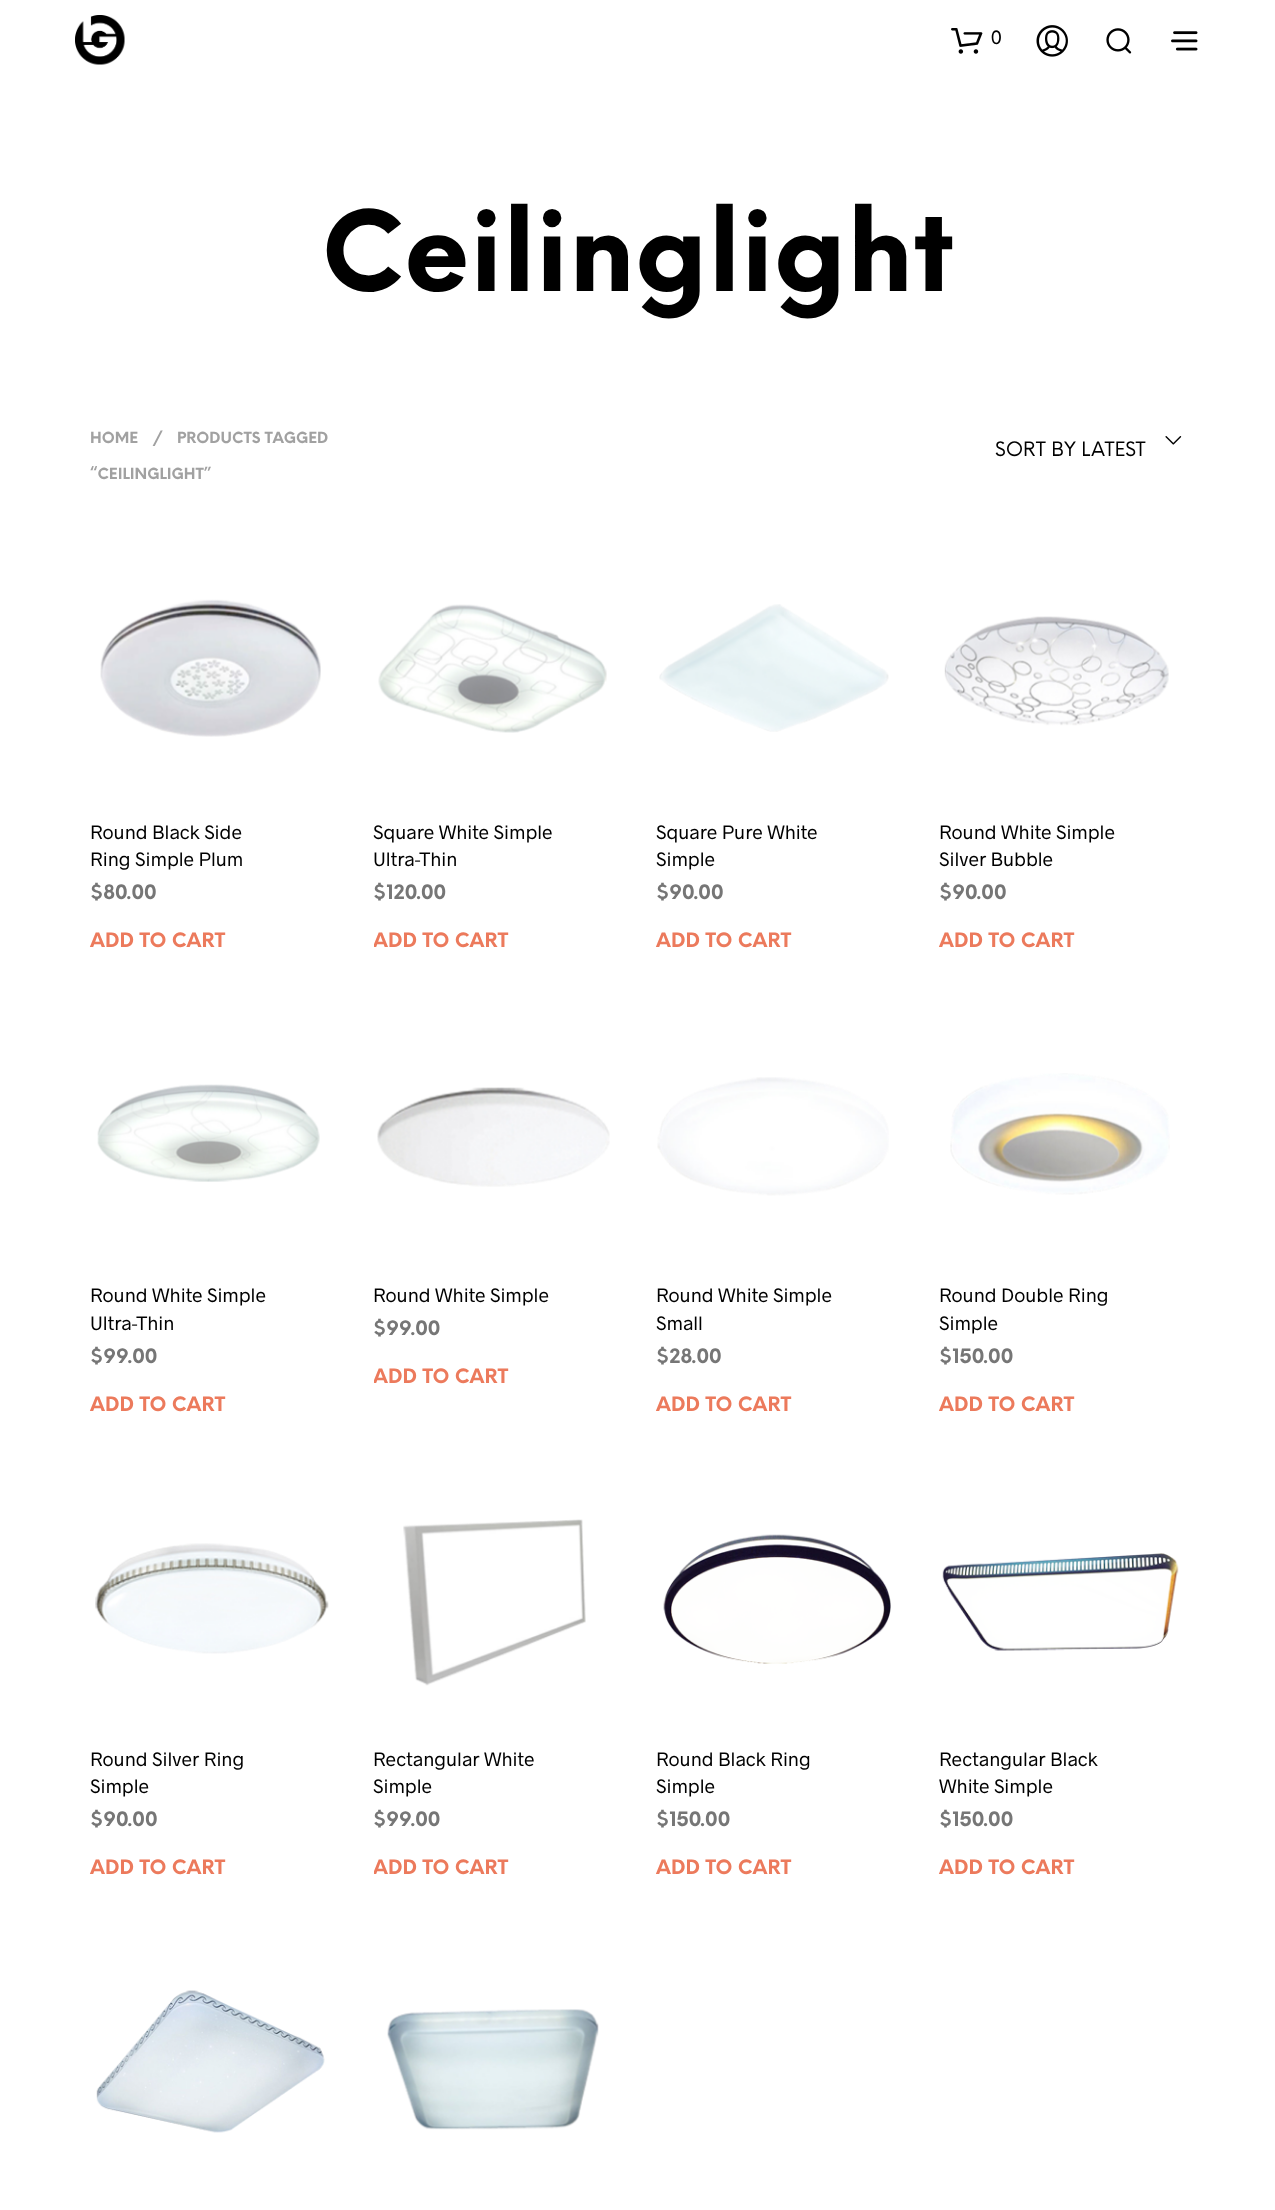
<!DOCTYPE html>
<meta charset="utf-8">
<style>body { margin: 0 } canvas { display: block }</style>
<canvas id="canvas" width="1275" height="2210"></canvas>
<img id="img1" src="img_01.png" hidden>
<img id="img2" src="img_02.png" hidden>
<img id="img3" src="img_03.png" hidden>
<img id="img4" src="img_04.png" hidden>
<img id="img5" src="img_05.png" hidden>
<img id="img6" src="img_06.png" hidden>
<img id="img7" src="img_07.png" hidden>
<img id="img8" src="img_08.png" hidden>
<img id="img9" src="img_09.png" hidden>
<img id="img10" src="img_10.png" hidden>
<img id="img11" src="img_11.png" hidden>
<img id="img12" src="img_12.png" hidden>
<img id="img13" src="img_13.png" hidden>
<img id="img14" src="img_14.png" hidden>
<img id="img15" src="img_15.png" hidden>
<img id="img16" src="img_16.png" hidden>
<img id="img17" src="img_17.png" hidden>
<img id="img18" src="img_18.png" hidden>
<img id="img19" src="img_19.png" hidden>
<img id="img20" src="img_20.png" hidden>
<script>
window.onload = function () {
	const canvas = document.getElementById("canvas");
	const ctx = canvas.getContext("2d");
	ctx.miterLimit = 4;
	ctx.fontKerning = "normal";
	function txt(s, x, y) {
		ctx.fillText(s, x, y);
	}
	function fill(x, y, w, h) {
		ctx.fillRect(x, y, w, h);
	}
	function img(id, x, y, w, h) {
		ctx.drawImage(document.getElementById(id), x, y, w, h);
	}

	ctx.fillStyle = "#FFFFFF";
	fill(0, 0, 1275, 2210);
	img("img1", 75, 15, 50, 50);
	img("img2", 951, 28, 32, 26);
	img("img3", 1036, 25, 32, 32);
	img("img4", 1106, 28, 26, 26);
	img("img5", 1171, 31, 27, 20);
	img("img6", 1165, 436, 17, 9);
	img("img7", 100, 599, 221, 138);
	img("img8", 378, 604, 229, 129);
	img("img9", 659, 604, 230, 128);
	img("img10", 944, 616, 225, 110);
	img("img11", 97, 1084, 223, 98);
	img("img12", 377, 1087, 233, 100);
	img("img13", 657, 1077, 232, 119);
	img("img14", 950, 1073, 220, 122);
	img("img15", 95, 1543, 234, 111);
	img("img16", 403, 1519, 183, 167);
	img("img17", 663, 1534, 228, 130);
	img("img18", 942, 1553, 237, 98);
	img("img19", 96, 1990, 229, 143);
	img("img20", 387, 2009, 212, 121);
	ctx.font = "19.5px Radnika";
	ctx.fillStyle = "#000000";
	txt("0", 991, 44);
	ctx.font = "bold 109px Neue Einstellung";
	txt("Ceilinglight", 321, 291);
	ctx.font = "bold 15px Neue Einstellung";
	ctx.fillStyle = "#A1A1A1";
	txt("HOME", 90, 443);
	txt("/", 153, 443);
	txt("PRODUCTS TAGGED", 177, 443);
	txt("“CEILINGLIGHT”", 90, 479);
	ctx.font = "19.5px Neue Einstellung";
	ctx.fillStyle = "#000000";
	txt("SORT BY LATEST", 995, 456);
	ctx.font = "19.5px Radnika";
	txt("Round Black Side", 90, 839);
	txt("Ring Simple Plum", 90, 866);
	ctx.font = "bold 19.5px Neue Einstellung";
	ctx.fillStyle = "#767676";
	txt("$80.00", 90, 899);
	ctx.fillStyle = "#EC7A5C";
	txt("ADD TO CART", 90, 947);
	ctx.font = "19.5px Radnika";
	ctx.fillStyle = "#000000";
	txt("Square White Simple", 373, 839);
	txt("Ultra-Thin", 373, 866);
	ctx.font = "bold 19.5px Neue Einstellung";
	ctx.fillStyle = "#767676";
	txt("$120.00", 373, 899);
	ctx.save();
	ctx.beginPath();
	ctx.rect(374, 875, 244, 99);
	ctx.clip();
	ctx.fillStyle = "#EC7A5C";
	txt("ADD TO CART", 373, 947);
	ctx.restore();
	ctx.font = "19.5px Radnika";
	ctx.fillStyle = "#000000";
	txt("Square Pure White", 656, 839);
	txt("Simple", 656, 866);
	ctx.font = "bold 19.5px Neue Einstellung";
	ctx.fillStyle = "#767676";
	txt("$90.00", 656, 899);
	ctx.fillStyle = "#EC7A5C";
	txt("ADD TO CART", 656, 947);
	ctx.font = "19.5px Radnika";
	ctx.fillStyle = "#000000";
	txt("Round White Simple", 939, 839);
	txt("Silver Bubble", 939, 866);
	ctx.font = "bold 19.5px Neue Einstellung";
	ctx.fillStyle = "#767676";
	txt("$90.00", 939, 899);
	ctx.fillStyle = "#EC7A5C";
	txt("ADD TO CART", 939, 947);
	ctx.font = "19.5px Radnika";
	ctx.fillStyle = "#000000";
	txt("Round White Simple", 90, 1302);
	txt("Ultra-Thin", 90, 1330);
	ctx.font = "bold 19.5px Neue Einstellung";
	ctx.fillStyle = "#767676";
	txt("$99.00", 90, 1363);
	ctx.fillStyle = "#EC7A5C";
	txt("ADD TO CART", 90, 1411);
	ctx.font = "19.5px Radnika";
	ctx.fillStyle = "#000000";
	txt("Round White Simple", 373, 1302);
	ctx.font = "bold 19.5px Neue Einstellung";
	ctx.fillStyle = "#767676";
	txt("$99.00", 373, 1335);
	ctx.save();
	ctx.beginPath();
	ctx.rect(374, 1310, 244, 99);
	ctx.clip();
	ctx.fillStyle = "#EC7A5C";
	txt("ADD TO CART", 373, 1383);
	ctx.restore();
	ctx.font = "19.5px Radnika";
	ctx.fillStyle = "#000000";
	txt("Round White Simple", 656, 1302);
	txt("Small", 656, 1330);
	ctx.font = "bold 19.5px Neue Einstellung";
	ctx.fillStyle = "#767676";
	txt("$28.00", 656, 1363);
	ctx.fillStyle = "#EC7A5C";
	txt("ADD TO CART", 656, 1411);
	ctx.font = "19.5px Radnika";
	ctx.fillStyle = "#000000";
	txt("Round Double Ring", 939, 1302);
	txt("Simple", 939, 1330);
	ctx.font = "bold 19.5px Neue Einstellung";
	ctx.fillStyle = "#767676";
	txt("$150.00", 939, 1363);
	ctx.fillStyle = "#EC7A5C";
	txt("ADD TO CART", 939, 1411);
	ctx.font = "19.5px Radnika";
	ctx.fillStyle = "#000000";
	txt("Round Silver Ring", 90, 1766);
	txt("Simple", 90, 1793);
	ctx.font = "bold 19.5px Neue Einstellung";
	ctx.fillStyle = "#767676";
	txt("$90.00", 90, 1826);
	ctx.fillStyle = "#EC7A5C";
	txt("ADD TO CART", 90, 1874);
	ctx.font = "19.5px Radnika";
	ctx.fillStyle = "#000000";
	txt("Rectangular White", 373, 1766);
	txt("Simple", 373, 1793);
	ctx.font = "bold 19.5px Neue Einstellung";
	ctx.fillStyle = "#767676";
	txt("$99.00", 373, 1826);
	ctx.save();
	ctx.beginPath();
	ctx.rect(374, 1800, 244, 99);
	ctx.clip();
	ctx.fillStyle = "#EC7A5C";
	txt("ADD TO CART", 373, 1874);
	ctx.restore();
	ctx.font = "19.5px Radnika";
	ctx.fillStyle = "#000000";
	txt("Round Black Ring", 656, 1766);
	txt("Simple", 656, 1793);
	ctx.font = "bold 19.5px Neue Einstellung";
	ctx.fillStyle = "#767676";
	txt("$150.00", 656, 1826);
	ctx.fillStyle = "#EC7A5C";
	txt("ADD TO CART", 656, 1874);
	ctx.font = "19.5px Radnika";
	ctx.fillStyle = "#000000";
	txt("Rectangular Black", 939, 1766);
	txt("White Simple", 939, 1793);
	ctx.font = "bold 19.5px Neue Einstellung";
	ctx.fillStyle = "#767676";
	txt("$150.00", 939, 1826);
	ctx.fillStyle = "#EC7A5C";
	txt("ADD TO CART", 939, 1874);
};
</script>
